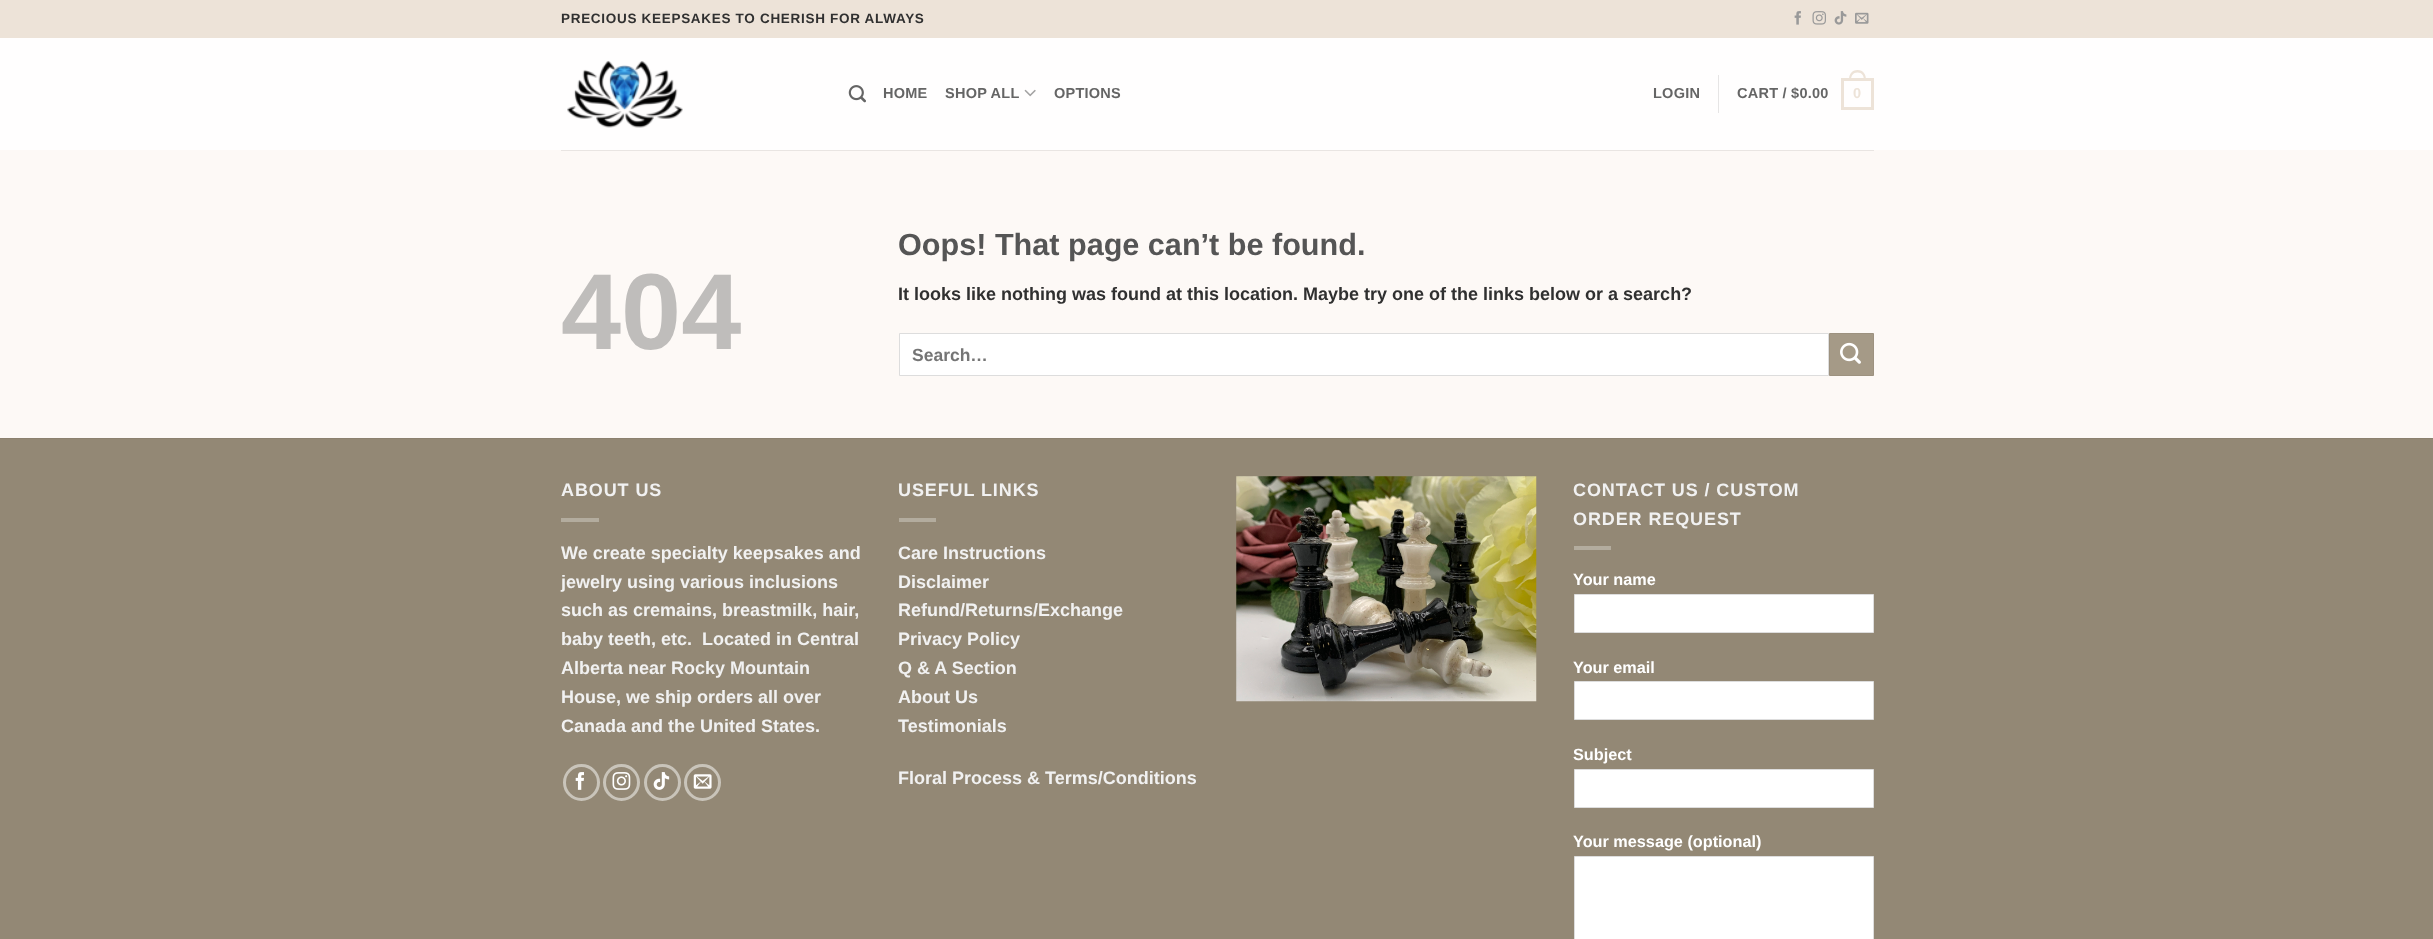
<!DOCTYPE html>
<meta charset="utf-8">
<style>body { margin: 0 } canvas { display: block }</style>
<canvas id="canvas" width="2433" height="939"></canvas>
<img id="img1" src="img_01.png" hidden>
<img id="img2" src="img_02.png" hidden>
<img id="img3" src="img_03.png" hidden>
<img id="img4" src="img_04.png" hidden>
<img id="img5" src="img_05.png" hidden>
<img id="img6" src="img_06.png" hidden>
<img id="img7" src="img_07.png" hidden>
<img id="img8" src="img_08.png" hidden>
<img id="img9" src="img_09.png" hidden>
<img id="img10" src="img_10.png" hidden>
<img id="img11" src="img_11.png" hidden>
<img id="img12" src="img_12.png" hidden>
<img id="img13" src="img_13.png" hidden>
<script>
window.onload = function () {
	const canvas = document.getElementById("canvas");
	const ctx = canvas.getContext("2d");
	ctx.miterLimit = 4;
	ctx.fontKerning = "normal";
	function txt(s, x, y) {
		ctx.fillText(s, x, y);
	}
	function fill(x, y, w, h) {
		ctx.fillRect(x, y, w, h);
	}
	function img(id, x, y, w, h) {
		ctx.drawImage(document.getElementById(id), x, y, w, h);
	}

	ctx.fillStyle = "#FDF9F6";
	fill(0, 0, 2433, 939);
	ctx.fillStyle = "#EDE3D8";
	fill(0, 0, 2433, 38);
	img("img1", 1794, 11, 7, 14);
	img("img2", 1812, 11, 14, 14);
	img("img3", 1834, 11, 13, 14);
	img("img4", 1855, 12, 14, 12);
	ctx.fillStyle = "#FFFEFE";
	fill(0, 38, 2433, 112);
	img("img5", 567, 60, 116, 68);
	img("img6", 848, 85, 18, 18);
	img("img7", 1024, 89, 12, 8);
	ctx.fillStyle = "#E6E5E5";
	fill(1718, 75, 1, 38);
	ctx.strokeStyle = "#EDE3D8";
	ctx.lineWidth = 3;
	ctx.strokeRect(1842.5, 79.5, 30, 29);
	ctx.fillStyle = "#EDE3D8";
	ctx.beginPath();
	ctx.moveTo(1857.5, 70);
	ctx.bezierCurveTo(1863.5, 70, 1866, 74.5, 1866, 80);
	ctx.lineTo(1849, 80);
	ctx.bezierCurveTo(1849, 74.5, 1851.5, 70, 1857.5, 70);
	ctx.closePath();
	ctx.moveTo(1857.5, 72.5);
	ctx.bezierCurveTo(1862, 72.5, 1864, 76, 1864, 80);
	ctx.lineTo(1851, 80);
	ctx.bezierCurveTo(1851, 76, 1853, 72.5, 1857.5, 72.5);
	ctx.closePath();
	ctx.fill("evenodd");
	ctx.fillStyle = "#E9E5E2";
	fill(561, 150, 1313, 1);
	ctx.fillStyle = "#FFFFFF";
	ctx.beginPath();
	ctx.rect(899.5, 333.5, 929, 42);
	ctx.fill();
	ctx.strokeStyle = "#DDDDDD";
	ctx.lineWidth = 1;
	ctx.stroke();
	ctx.fillStyle = "#A59A87";
	ctx.beginPath();
	ctx.rect(1829.5, 333.5, 44, 42);
	ctx.fill();
	ctx.strokeStyle = "#9D9280";
	ctx.stroke();
	img("img8", 1840, 342, 21, 22);
	ctx.fillStyle = "#938875";
	fill(0, 439, 2433, 500);
	ctx.fillStyle = "#8C816F";
	fill(0, 438, 2433, 1);
	ctx.fillStyle = "#B3AC9E";
	fill(561, 518, 38, 4);
	ctx.beginPath();
	ctx.arc(581.5, 782.5, 17, 0, Math.PI * 2);
	ctx.strokeStyle = "#C9C4BA";
	ctx.lineWidth = 3;
	ctx.stroke();
	img("img9", 575, 772, 9, 18);
	ctx.beginPath();
	ctx.arc(621.5, 782.5, 17, 0, Math.PI * 2);
	ctx.stroke();
	img("img10", 612, 772, 19, 18);
	ctx.beginPath();
	ctx.arc(662.5, 782.5, 17, 0, Math.PI * 2);
	ctx.stroke();
	img("img11", 653, 772, 17, 18);
	ctx.beginPath();
	ctx.arc(702.5, 782.5, 17, 0, Math.PI * 2);
	ctx.stroke();
	img("img12", 693, 774, 19, 15);
	fill(899, 518, 37, 4);
	img("img13", 1236, 476, 301, 226);
	fill(1574, 546, 37, 4);
	ctx.fillStyle = "#FFFFFF";
	ctx.beginPath();
	ctx.rect(1574.5, 594.5, 299, 38);
	ctx.fill();
	ctx.strokeStyle = "#DDDDDD";
	ctx.lineWidth = 1;
	ctx.stroke();
	ctx.beginPath();
	ctx.rect(1574.5, 681.5, 299, 38);
	ctx.fill();
	ctx.stroke();
	ctx.beginPath();
	ctx.rect(1574.5, 769.5, 299, 38);
	ctx.fill();
	ctx.stroke();
	ctx.beginPath();
	ctx.rect(1574.5, 856.5, 299, 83);
	ctx.fill();
	ctx.stroke();
	ctx.letterSpacing = "0.7px";
	ctx.font = "bold 13.5px Liberation Sans";
	ctx.fillStyle = "#303030";
	txt("PRECIOUS KEEPSAKES TO CHERISH FOR ALWAYS", 561, 23);
	ctx.letterSpacing = "0.25px";
	ctx.font = "bold 14.5px Liberation Sans";
	ctx.fillStyle = "#656565";
	txt("HOME", 883, 98);
	txt("SHOP ALL", 945, 98);
	txt("OPTIONS", 1054, 98);
	txt("LOGIN", 1653, 98);
	txt("CART / $0.00", 1737, 98);
	ctx.fillStyle = "#EDE3D8";
	txt("0", 1853, 98);
	ctx.letterSpacing = "0px";
	ctx.font = "bold 108px Liberation Sans";
	ctx.fillStyle = "#BFBDBB";
	txt("404", 561, 349);
	ctx.font = "bold 30.6px Liberation Sans";
	ctx.fillStyle = "#555555";
	txt("Oops! That page can’t be found.", 898, 255);
	ctx.font = "bold 18px Liberation Sans";
	ctx.fillStyle = "#303030";
	txt("It looks like nothing was found at this location. Maybe try one of the links below or a search?", 898, 300);
	ctx.font = "bold 17.5px Liberation Sans";
	ctx.fillStyle = "#757575";
	txt("Search…", 912, 361);
	ctx.letterSpacing = "0.9px";
	ctx.font = "bold 18px Liberation Sans";
	ctx.fillStyle = "#F1F1F1";
	txt("ABOUT US", 561, 496);
	ctx.letterSpacing = "0px";
	txt("We create specialty keepsakes and", 561, 559);
	txt("jewelry using various inclusions", 561, 588);
	txt("such as cremains, breastmilk, hair,", 561, 616);
	txt("baby teeth, etc.  Located in Central", 561, 645);
	txt("Alberta near Rocky Mountain", 561, 674);
	txt("House, we ship orders all over", 561, 703);
	txt("Canada and the United States.", 561, 732);
	ctx.letterSpacing = "0.9px";
	txt("USEFUL LINKS", 898, 496);
	ctx.letterSpacing = "0px";
	txt("Care Instructions", 898, 559);
	txt("Disclaimer", 898, 588);
	txt("Refund/Returns/Exchange", 898, 616);
	txt("Privacy Policy", 898, 645);
	txt("Q & A Section", 898, 674);
	txt("About Us", 898, 703);
	txt("Testimonials", 898, 732);
	txt("Floral Process & Terms/Conditions", 898, 784);
	ctx.letterSpacing = "0.9px";
	txt("CONTACT US / CUSTOM", 1573, 496);
	txt("ORDER REQUEST", 1573, 525);
	ctx.letterSpacing = "0px";
	ctx.font = "bold 16.25px Liberation Sans";
	ctx.fillStyle = "#FFFFFF";
	txt("Your name", 1573, 585);
	txt("Your email", 1573, 673);
	txt("Subject", 1573, 760);
	txt("Your message (optional)", 1573, 847);
};
</script>
